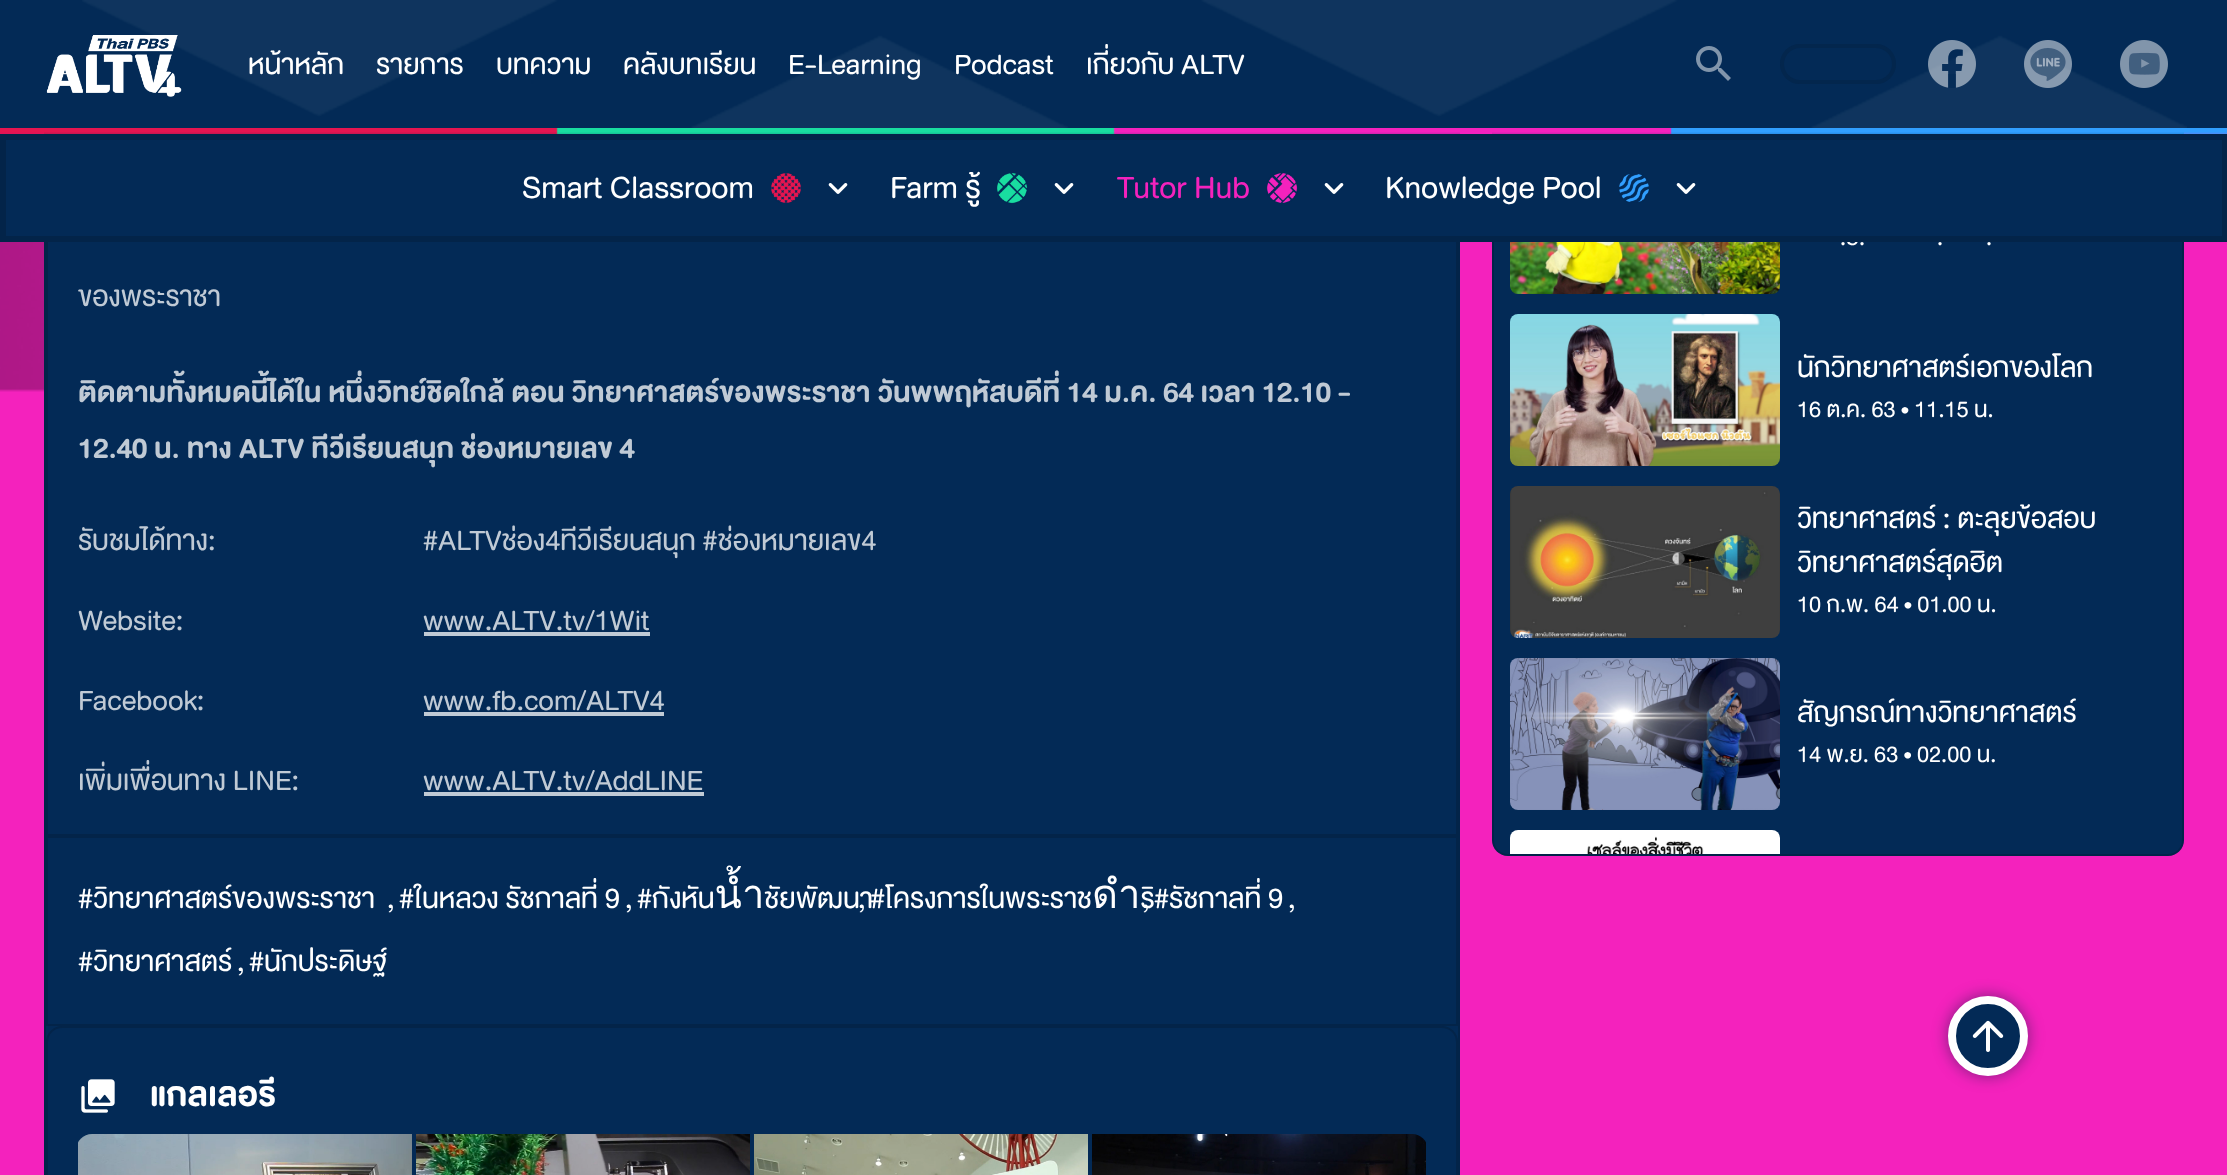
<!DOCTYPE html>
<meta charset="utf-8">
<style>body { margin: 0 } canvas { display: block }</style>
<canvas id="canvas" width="2227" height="1175"></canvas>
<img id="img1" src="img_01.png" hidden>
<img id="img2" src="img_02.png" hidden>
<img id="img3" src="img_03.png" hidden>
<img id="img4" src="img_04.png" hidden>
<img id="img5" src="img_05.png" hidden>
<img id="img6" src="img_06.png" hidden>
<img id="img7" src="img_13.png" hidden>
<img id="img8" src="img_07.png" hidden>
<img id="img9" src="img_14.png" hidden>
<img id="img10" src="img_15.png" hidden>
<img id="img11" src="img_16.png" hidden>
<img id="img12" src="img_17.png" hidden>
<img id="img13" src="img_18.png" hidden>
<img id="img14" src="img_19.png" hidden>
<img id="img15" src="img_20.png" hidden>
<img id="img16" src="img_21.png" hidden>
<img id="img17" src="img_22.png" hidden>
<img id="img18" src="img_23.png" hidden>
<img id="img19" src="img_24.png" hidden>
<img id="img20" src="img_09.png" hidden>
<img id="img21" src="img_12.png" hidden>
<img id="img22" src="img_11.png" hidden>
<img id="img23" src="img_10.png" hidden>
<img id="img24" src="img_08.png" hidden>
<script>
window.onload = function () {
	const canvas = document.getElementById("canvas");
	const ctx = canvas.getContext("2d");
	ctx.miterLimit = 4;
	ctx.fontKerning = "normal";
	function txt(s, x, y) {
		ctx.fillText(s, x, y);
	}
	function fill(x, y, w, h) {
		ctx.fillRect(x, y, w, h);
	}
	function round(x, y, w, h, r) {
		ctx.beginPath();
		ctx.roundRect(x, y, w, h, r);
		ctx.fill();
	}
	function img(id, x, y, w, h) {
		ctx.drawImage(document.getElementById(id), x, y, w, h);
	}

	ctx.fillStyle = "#F422BD";
	fill(0, 0, 2227, 1175);
	ctx.fillStyle = "#032A56";
	fill(46, 132, 1412, 1043);
	ctx.strokeStyle = "#032449";
	ctx.lineWidth = 2;
	ctx.strokeRect(45, -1, 1414, 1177);
	ctx.strokeRect(47, -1, 1410, 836);
	round(1492, -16, 692, 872, 16);
	ctx.beginPath();
	ctx.roundRect(1493, -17, 690, 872, 15);
	ctx.strokeStyle = "rgba(0, 0, 0, 0.15)";
	ctx.stroke();
	fill(0, 0, 2227, 128);
	img("img1", 82, 0, 2105, 128);
	img("img2", 46, 35, 136, 62);
	img("img3", 1696, 46, 35, 35);
	ctx.beginPath();
	ctx.roundRect(1782, 46, 112, 36, 18);
	ctx.strokeStyle = "#03264D";
	ctx.lineWidth = 4;
	ctx.stroke();
	img("img4", 1928, 40, 48, 48);
	img("img5", 2024, 40, 48, 48);
	img("img6", 2120, 40, 48, 48);
	img("img7", 0, 132, 44, 260);
	img("img8", 0, 128, 2227, 6);
	ctx.fillStyle = "#C0CAD5";
	fill(424, 632, 226, 4);
	fill(424, 712, 240, 4);
	fill(424, 792, 280, 4);
	ctx.strokeStyle = "#032449";
	ctx.lineWidth = 2;
	ctx.strokeRect(47, 837, 1410, 188);
	ctx.beginPath();
	ctx.roundRect(47, 1027, 1410, 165, 15);
	ctx.stroke();
	img("img9", 81, 1079, 34, 34);
	img("img10", 78, 1134, 334, 41);
	img("img11", 416, 1134, 334, 41);
	img("img12", 754, 1134, 334, 41);
	img("img13", 1092, 1134, 334, 41);
	img("img14", 1510, 242, 270, 52);
	img("img15", 1510, 314, 270, 152);
	img("img16", 1510, 486, 270, 152);
	img("img17", 1510, 658, 270, 152);
	img("img18", 1510, 830, 270, 24);
	ctx.fillStyle = "rgba(0, 27, 58, 0.5)";
	ctx.filter = "blur(8px)";
	ctx.beginPath();
	ctx.roundRect(1948, 996, 80, 80, 40);
	ctx.fill();
	ctx.filter = "none";
	ctx.fillStyle = "#032A56";
	ctx.beginPath();
	ctx.arc(1988, 1036, 36, 0, Math.PI * 2);
	ctx.fill();
	ctx.strokeStyle = "#FFFFFF";
	ctx.lineWidth = 8;
	ctx.stroke();
	img("img19", 1972, 1020, 32, 32);
	ctx.font = "40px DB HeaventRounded";
	ctx.fillStyle = "#FFFFFF";
	txt("หน้าหลัก", 248, 74);
	txt("รายการ", 376, 74);
	txt("บทความ", 496, 74);
	txt("คลังบทเรียน", 623, 74);
	txt("E-Learning", 788, 74);
	txt("Podcast", 954, 74);
	txt("เกี่ยวกับ ALTV", 1086, 74);
	ctx.fillStyle = "#C0CAD5";
	txt("ของพระราชา", 78, 306);
	ctx.font = "bold 40px DB HeaventRounded";
	txt("ติดตามทั้งหมดนี้ได้ใน หนึ่งวิทย์ชิดใกล้ ตอน วิทยาศาสตร์ของพระราชา วันพพฤหัสบดีที่ 14 ม.ค. 64 เวลา 12.10 -", 78, 402);
	txt("12.40 น. ทาง ALTV ทีวีเรียนสนุก ช่องหมายเลข 4", 78, 458);
	ctx.font = "40px DB HeaventRounded";
	txt("รับชมได้ทาง:", 78, 550);
	txt("#ALTVช่อง4ทีวีเรียนสนุก #ช่องหมายเลข4", 423, 550);
	txt("Website:", 78, 630);
	txt("www.ALTV.tv/1Wit", 423, 630);
	txt("Facebook:", 78, 710);
	txt("www.fb.com/ALTV4", 423, 710);
	txt("เพิ่มเพื่อนทาง LINE:", 78, 790);
	txt("www.ALTV.tv/AddLINE", 423, 790);
	ctx.fillStyle = "#FFFFFF";
	txt("#วิทยาศาสตร์ของพระราชา", 78, 908);
	txt(",", 387, 908);
	txt("#ในหลวง รัชกาลที่ 9", 399, 908);
	txt(",", 625, 908);
	txt("#กังหันน้ำชัยพัฒนา", 637, 908);
	txt(",", 858, 908);
	txt("#โครงการในพระราชดำริ", 870, 908);
	txt(",", 1142, 908);
	txt("#รัชกาลที่ 9", 1154, 908);
	txt(",", 1288, 908);
	txt("#วิทยาศาสตร์", 78, 971);
	txt(",", 237, 971);
	txt("#นักประดิษฐ์", 249, 971);
	ctx.font = "bold 48px DB HeaventRounded";
	txt("แกลเลอรี", 150, 1106);
	ctx.font = "32px DB HeaventRounded";
	txt(".ย.", 1840, 245);
	ctx.fillStyle = "#032A56";
	ctx.beginPath();
	ctx.rect(3, 137, 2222, 102);
	ctx.fill();
	ctx.strokeStyle = "#032449";
	ctx.lineWidth = 6;
	ctx.stroke();
	ctx.font = "44px DB HeaventRounded";
	ctx.fillStyle = "#FFFFFF";
	txt("Knowledge Pool", 1385, 198);
	img("img20", 1676, 183, 20, 11);
	img("img21", 1619, 174, 30, 29);
	ctx.fillStyle = "#F422BD";
	txt("Tutor Hub", 1117, 198);
	img("img20", 1324, 183, 20, 11);
	img("img22", 1266, 173, 32, 30);
	ctx.fillStyle = "#FFFFFF";
	txt("Farm รู้", 890, 198);
	img("img20", 1054, 183, 20, 11);
	img("img23", 997, 173, 31, 31);
	txt("Smart Classroom", 522, 198);
	img("img20", 828, 183, 20, 11);
	img("img24", 771, 173, 30, 30);
	ctx.font = "32px DB HeaventRounded";
	txt(".", 1937, 245);
	txt(".", 1986, 245);
	ctx.font = "40px DB HeaventRounded";
	txt("นักวิทยาศาสตร์เอกของโลก", 1797, 377);
	ctx.font = "32px DB HeaventRounded";
	txt("16 ต.ค. 63 • 11.15 น.", 1797, 417);
	ctx.font = "40px DB HeaventRounded";
	txt("วิทยาศาสตร์ : ตะลุยข้อสอบ", 1797, 528);
	txt("วิทยาศาสตร์สุดฮิต", 1797, 572);
	ctx.font = "32px DB HeaventRounded";
	txt("10 ก.พ. 64 • 01.00 น.", 1797, 612);
	ctx.font = "40px DB HeaventRounded";
	txt("สัญกรณ์ทางวิทยาศาสตร์", 1797, 722);
	ctx.font = "32px DB HeaventRounded";
	txt("14 พ.ย. 63 • 02.00 น.", 1797, 762);
};
</script>
